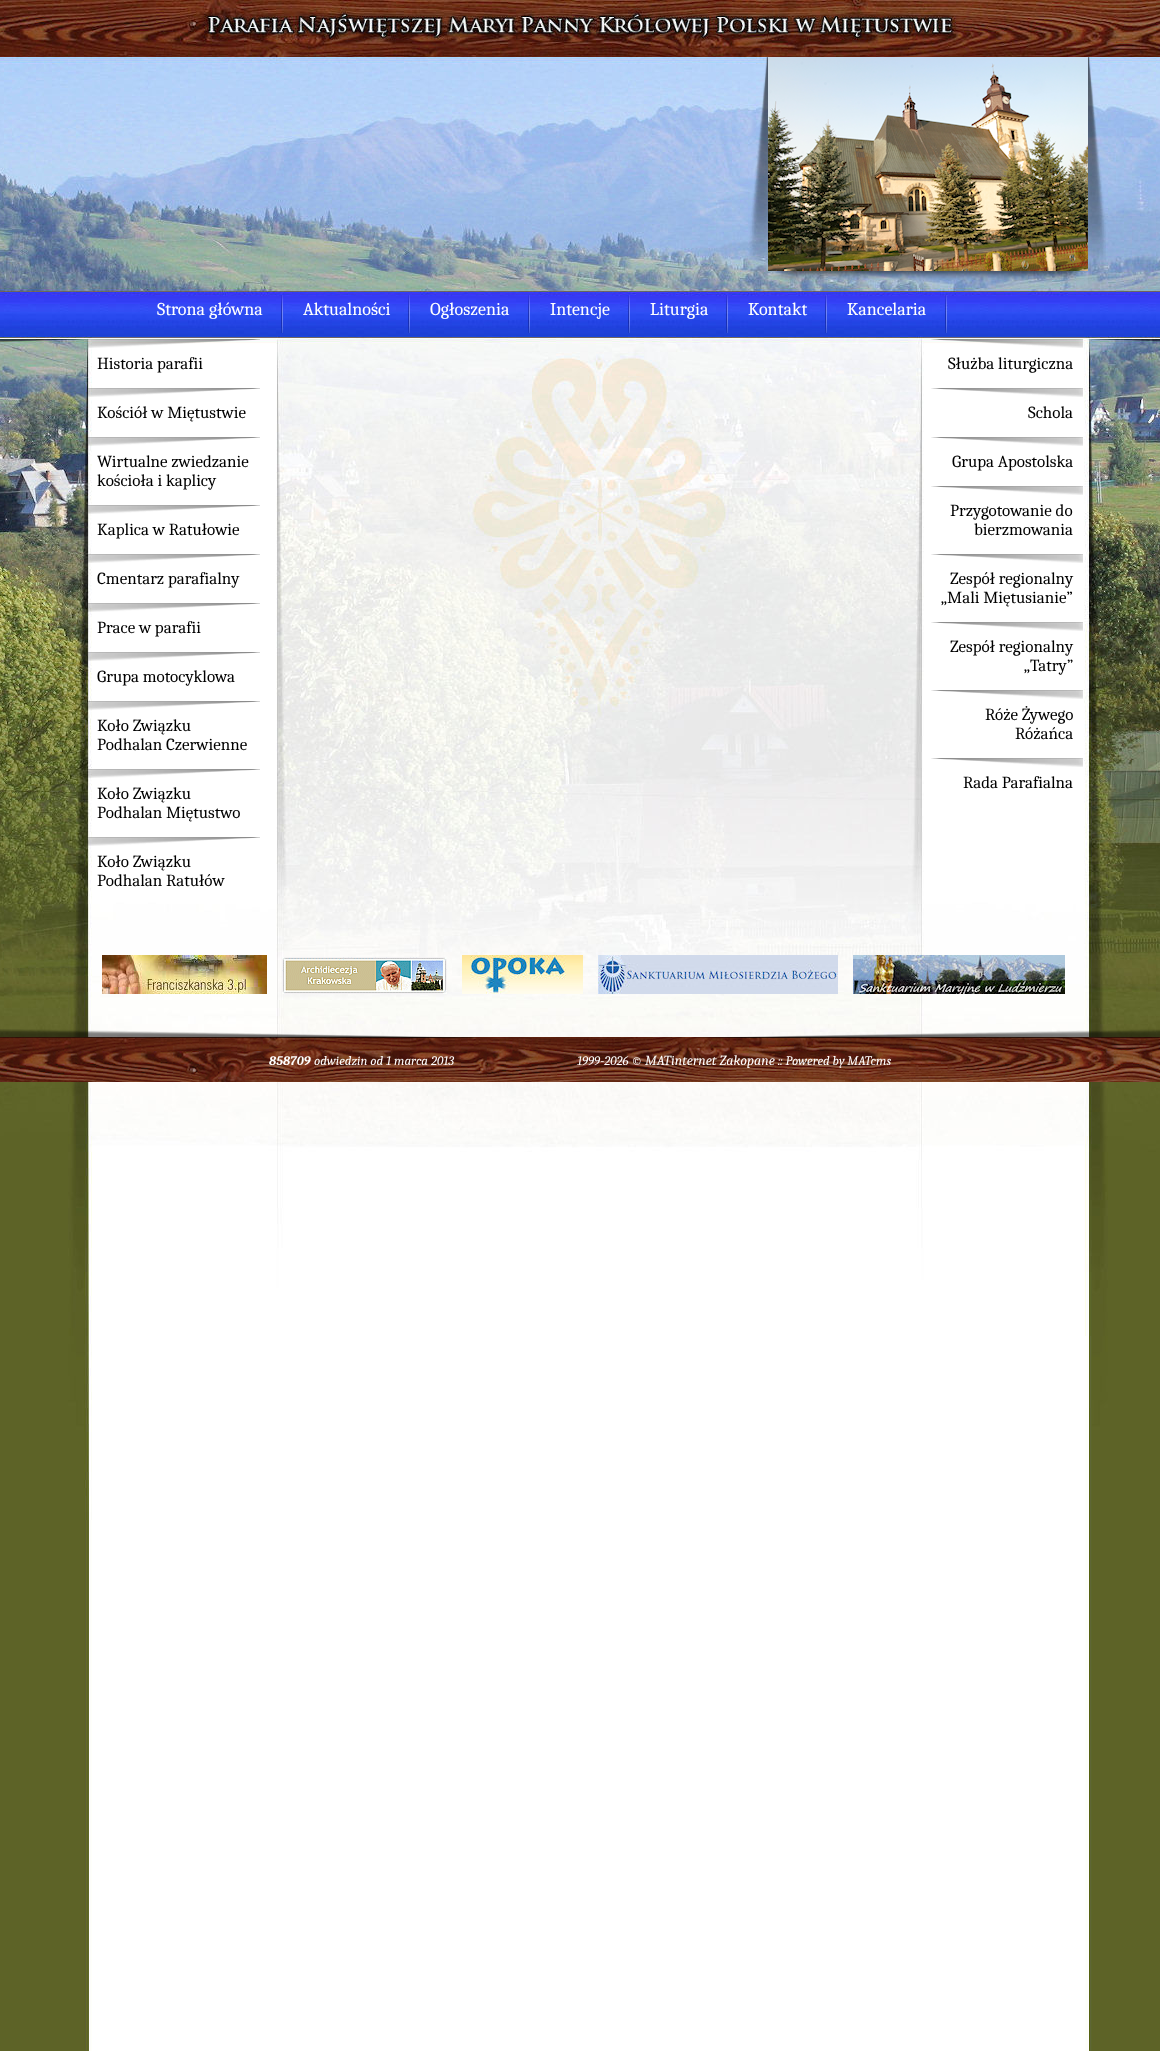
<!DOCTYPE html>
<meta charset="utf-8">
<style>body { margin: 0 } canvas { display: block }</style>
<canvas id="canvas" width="1160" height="2051"></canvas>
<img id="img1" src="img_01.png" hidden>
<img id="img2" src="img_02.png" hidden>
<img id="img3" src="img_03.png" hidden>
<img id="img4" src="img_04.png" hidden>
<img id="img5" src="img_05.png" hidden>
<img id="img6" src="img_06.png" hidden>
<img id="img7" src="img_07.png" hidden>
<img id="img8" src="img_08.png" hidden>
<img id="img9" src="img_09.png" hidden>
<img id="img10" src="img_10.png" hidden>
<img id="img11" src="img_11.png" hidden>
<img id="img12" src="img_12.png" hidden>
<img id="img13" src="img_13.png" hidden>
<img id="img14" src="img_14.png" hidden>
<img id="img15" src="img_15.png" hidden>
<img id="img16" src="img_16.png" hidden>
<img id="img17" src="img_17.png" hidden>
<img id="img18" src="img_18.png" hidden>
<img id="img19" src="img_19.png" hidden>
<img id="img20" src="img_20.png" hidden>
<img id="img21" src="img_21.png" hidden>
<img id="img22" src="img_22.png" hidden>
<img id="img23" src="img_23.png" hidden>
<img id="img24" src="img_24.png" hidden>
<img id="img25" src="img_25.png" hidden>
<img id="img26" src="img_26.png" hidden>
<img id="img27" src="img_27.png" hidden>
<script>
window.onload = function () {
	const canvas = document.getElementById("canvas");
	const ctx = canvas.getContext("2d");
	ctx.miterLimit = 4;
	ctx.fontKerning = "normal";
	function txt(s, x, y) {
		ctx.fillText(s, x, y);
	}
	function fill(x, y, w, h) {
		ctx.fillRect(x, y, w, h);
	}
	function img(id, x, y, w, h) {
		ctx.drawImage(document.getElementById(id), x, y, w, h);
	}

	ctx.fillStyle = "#FFFFFF";
	fill(0, 0, 1160, 2051);
	img("img1", 0, 0, 1160, 2051);
	img("img2", 748, 57, 358, 233);
	img("img3", 281, 295, 2, 38);
	img("img4", 408, 295, 2, 38);
	img("img5", 528, 295, 2, 38);
	img("img6", 628, 295, 2, 38);
	img("img7", 726, 295, 2, 38);
	img("img8", 825, 295, 2, 38);
	img("img9", 945, 295, 2, 38);
	img("img10", 87, 339, 173, 9);
	img("img11", 87, 388, 173, 9);
	img("img12", 87, 437, 173, 9);
	img("img13", 87, 505, 173, 9);
	img("img14", 87, 554, 173, 9);
	img("img15", 87, 603, 173, 9);
	img("img16", 87, 652, 173, 9);
	img("img17", 87, 701, 173, 9);
	img("img18", 87, 769, 173, 9);
	img("img19", 87, 837, 173, 9);
	img("img20", 931, 339, 152, 9);
	img("img21", 931, 388, 152, 9);
	img("img21", 931, 437, 152, 9);
	img("img21", 931, 486, 152, 9);
	img("img21", 931, 554, 152, 9);
	img("img21", 931, 622, 152, 9);
	img("img21", 931, 690, 152, 9);
	img("img21", 931, 758, 152, 9);
	img("img22", 102, 955, 165, 39);
	img("img23", 282, 957, 165, 37);
	img("img24", 462, 955, 121, 39);
	img("img25", 598, 955, 240, 39);
	img("img26", 853, 955, 212, 39);
	img("img27", 0, 1029, 1160, 53);
	ctx.font = "18px Caladea";
	txt("Strona główna", 157, 315);
	txt("Aktualności", 303, 315);
	txt("Ogłoszenia", 430, 315);
	txt("Intencje", 550, 315);
	txt("Liturgia", 650, 315);
	txt("Kontakt", 748, 315);
	txt("Kancelaria", 847, 315);
	ctx.font = "17px Caladea";
	ctx.fillStyle = "#000000";
	txt("Historia parafii", 97, 369);
	txt("Kościół w Miętustwie", 97, 418);
	txt("Wirtualne zwiedzanie", 97, 467);
	txt("kościoła i kaplicy", 97, 486);
	txt("Kaplica w Ratułowie", 97, 535);
	txt("Cmentarz parafialny", 97, 584);
	txt("Prace w parafii", 97, 633);
	txt("Grupa motocyklowa", 97, 682);
	txt("Koło Związku", 97, 731);
	txt("Podhalan Czerwienne", 97, 750);
	txt("Koło Związku", 97, 799);
	txt("Podhalan Miętustwo", 97, 818);
	txt("Koło Związku", 97, 867);
	txt("Podhalan Ratułów", 97, 886);
	txt("Służba liturgiczna", 948, 369);
	txt("Schola", 1028, 418);
	txt("Grupa Apostolska", 952, 467);
	txt("Przygotowanie do", 950, 516);
	txt("bierzmowania", 974, 535);
	txt("Zespół regionalny", 950, 584);
	txt("„Mali Miętusianie”", 941, 603);
	txt("Zespół regionalny", 950, 652);
	txt("„Tatry”", 1024, 671);
	txt("Róże Żywego", 985, 720);
	txt("Różańca", 1015, 739);
	txt("Rada Parafialna", 963, 788);
	ctx.font = "italic bold 13px Caladea";
	ctx.fillStyle = "#FFFFFF";
	txt("858709", 269, 1065);
	ctx.font = "italic 13px Caladea";
	txt("odwiedzin od 1 marca 2013                                           1999-2026 ©", 314, 1065);
	ctx.font = "italic 14px Caladea";
	txt("MATinternet Zakopane", 645, 1065);
	ctx.font = "italic 13px Caladea";
	txt(":: Powered by MATcms", 778, 1065);
};
</script>
